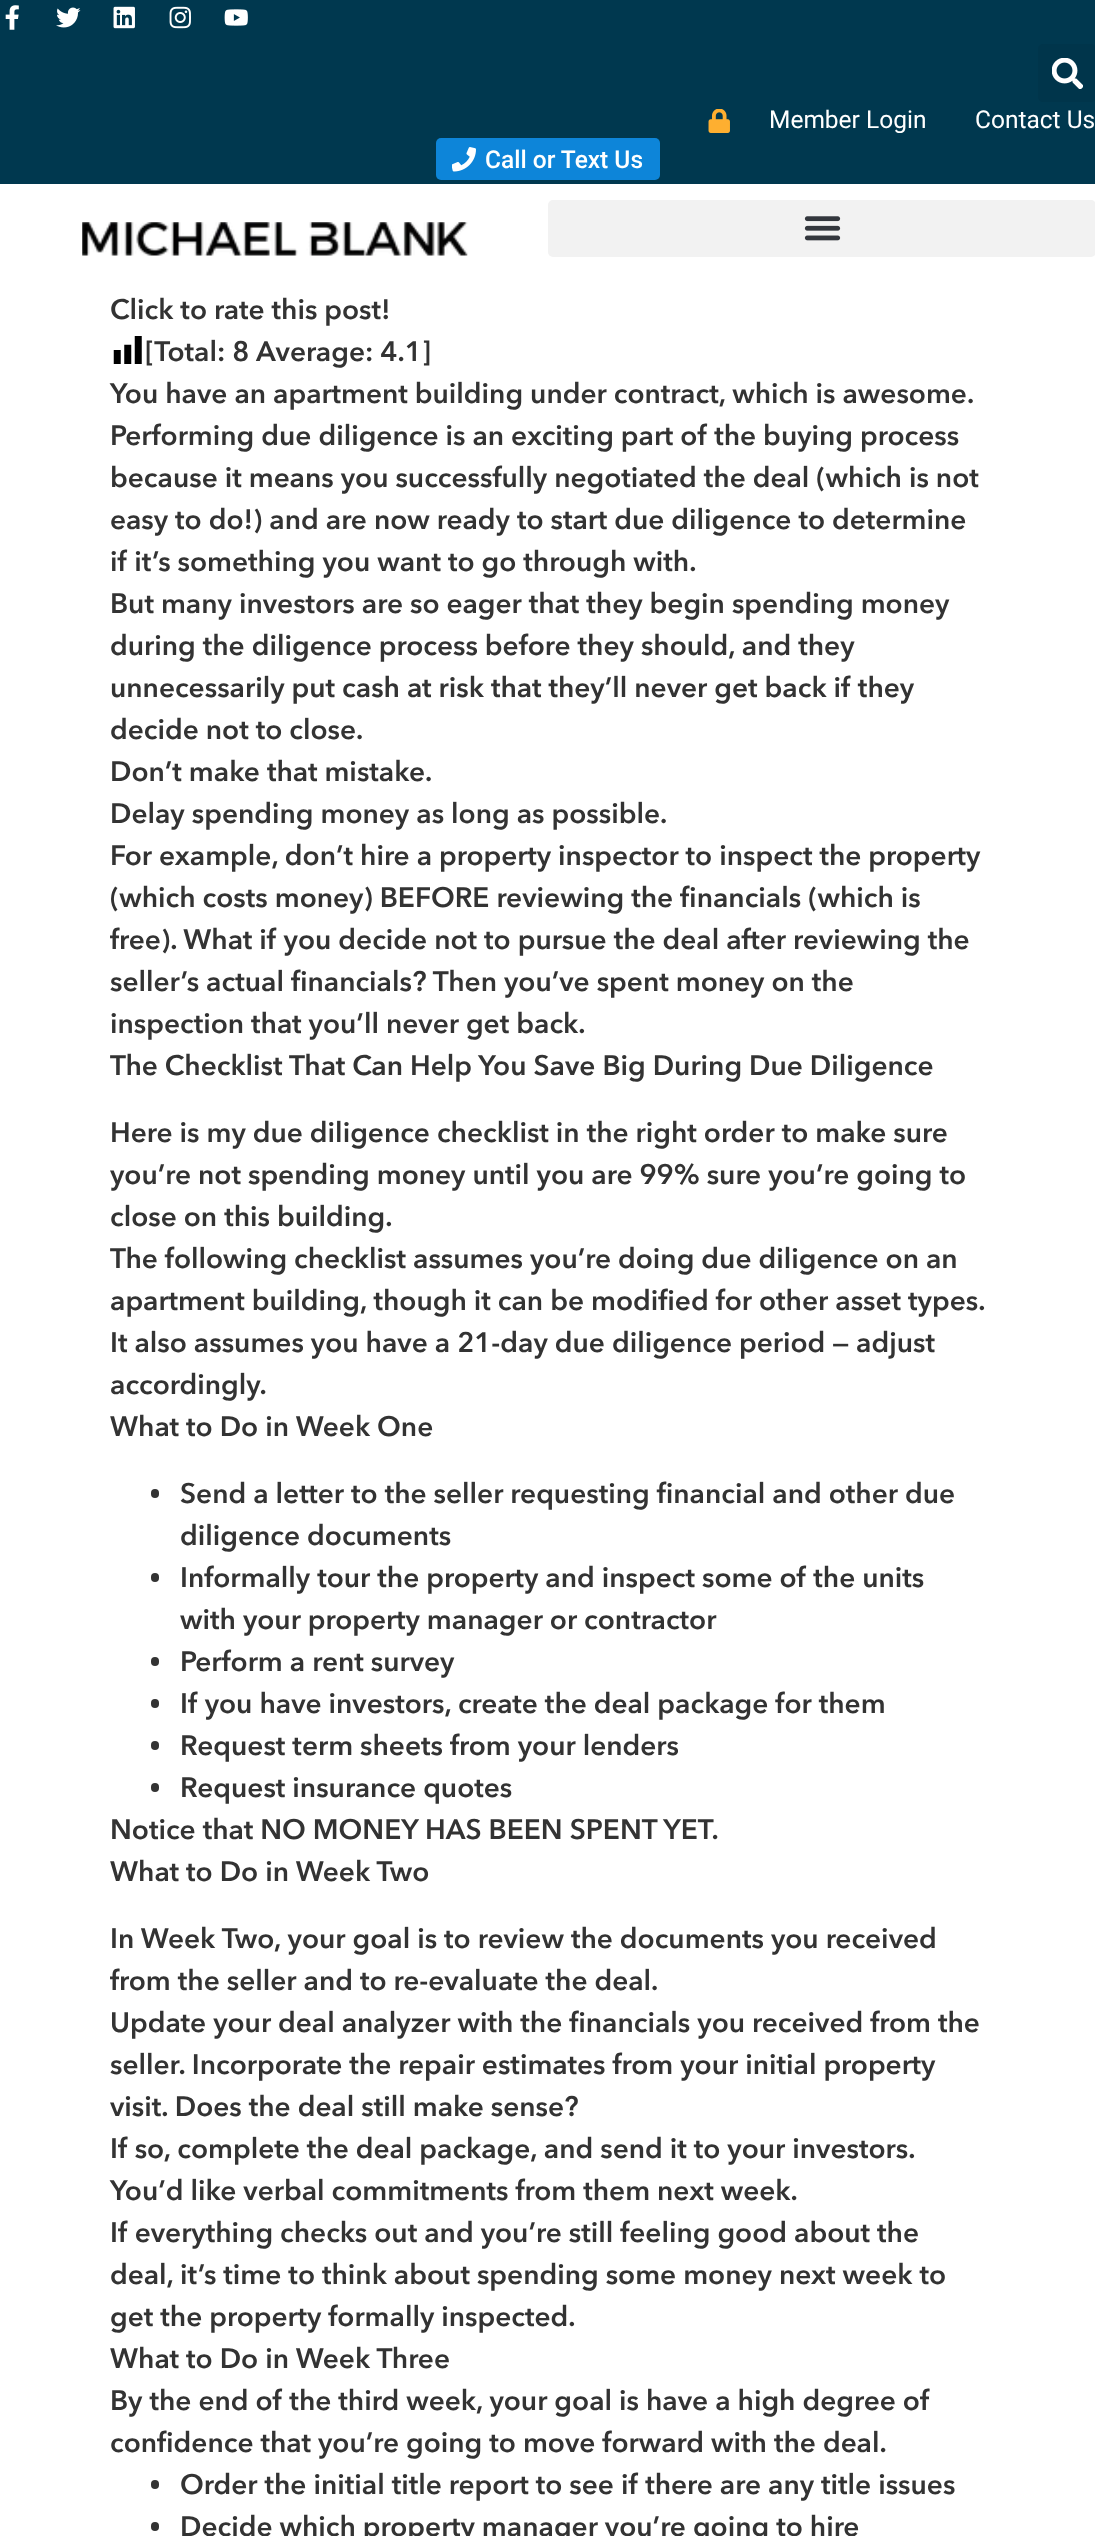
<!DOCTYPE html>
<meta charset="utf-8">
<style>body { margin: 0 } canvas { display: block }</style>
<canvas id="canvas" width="1095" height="2536"></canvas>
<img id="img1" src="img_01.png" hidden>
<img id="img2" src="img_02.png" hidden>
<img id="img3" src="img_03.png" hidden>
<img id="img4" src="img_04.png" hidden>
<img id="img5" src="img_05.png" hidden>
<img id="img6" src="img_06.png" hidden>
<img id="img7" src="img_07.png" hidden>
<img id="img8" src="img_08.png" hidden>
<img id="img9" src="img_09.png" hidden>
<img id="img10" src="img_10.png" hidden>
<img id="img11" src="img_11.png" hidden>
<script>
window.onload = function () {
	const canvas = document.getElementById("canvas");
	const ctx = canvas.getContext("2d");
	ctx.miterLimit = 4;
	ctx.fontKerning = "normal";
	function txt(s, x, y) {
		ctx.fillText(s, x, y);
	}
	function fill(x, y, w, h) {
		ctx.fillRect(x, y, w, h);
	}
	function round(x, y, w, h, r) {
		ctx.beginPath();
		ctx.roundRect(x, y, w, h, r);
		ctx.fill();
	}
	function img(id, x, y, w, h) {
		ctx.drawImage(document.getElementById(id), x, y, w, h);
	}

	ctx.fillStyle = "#FFFFFF";
	fill(0, 0, 1095, 2536);
	ctx.fillStyle = "#00384F";
	fill(0, 0, 1095, 184);
	img("img1", 5, 5, 14, 25);
	img("img2", 56, 7, 25, 21);
	img("img3", 113, 6, 22, 23);
	img("img4", 169, 6, 22, 23);
	img("img5", 224, 9, 24, 17);
	ctx.fillStyle = "#00354B";
	round(1038, 44, 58, 58, 5);
	img("img6", 1052, 58, 31, 31);
	img("img7", 708, 109, 22, 24);
	ctx.fillStyle = "#0D85D9";
	round(436, 138, 224, 42, 5);
	img("img8", 452, 147, 24, 25);
	img("img9", 82, 222, 386, 34);
	ctx.fillStyle = "#F2F2F2";
	round(548, 200, 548, 57, 5);
	img("img10", 804, 216, 37, 25);
	img("img11", 113, 336, 29, 28);
	ctx.fillStyle = "#333333";
	round(151, 1489, 8, 9, 4);
	round(151, 1573, 8, 9, 4);
	round(151, 1657, 8, 9, 4);
	round(151, 1699, 8, 9, 4);
	round(151, 1741, 8, 9, 4);
	round(151, 1783, 8, 9, 4);
	round(151, 2480, 8, 9, 4);
	round(151, 2522, 8, 9, 4);
	ctx.font = "24.5px Roboto";
	ctx.fillStyle = "#FFFFFF";
	txt("Member Login", 769, 128);
	txt("Contact Us", 975, 128);
	ctx.font = "500 24.5px Roboto";
	txt("Call or Text Us", 485, 168);
	ctx.font = "bold 28px Avenir";
	ctx.fillStyle = "#333333";
	txt("Click to rate this post!", 110, 319);
	txt("[Total: 8", 145, 361);
	txt("Average: 4.1]", 256, 361);
	txt("You have an apartment building under contract, which is awesome.", 110, 403);
	txt("Performing due diligence is an exciting part of the buying process", 110, 445);
	txt("because it means you successfully negotiated the deal (which is not", 110, 487);
	txt("easy to do!) and are now ready to start due diligence to determine", 110, 529);
	txt("if it’s something you want to go through with.", 110, 571);
	txt("But many investors are so eager that they begin spending money", 110, 613);
	txt("during the diligence process before they should, and they", 110, 655);
	txt("unnecessarily put cash at risk that they’ll never get back if they", 110, 697);
	txt("decide not to close.", 110, 739);
	txt("Don’t make that mistake.", 110, 781);
	txt("Delay spending money as long as possible.", 110, 823);
	txt("For example, don’t hire a property inspector to inspect the property", 110, 865);
	txt("(which costs money) BEFORE reviewing the financials (which is", 110, 907);
	txt("free). What if you decide not to pursue the deal after reviewing the", 110, 949);
	txt("seller’s actual financials? Then you’ve spent money on the", 110, 991);
	txt("inspection that you’ll never get back.", 110, 1033);
	txt("The Checklist That Can Help You Save Big During Due Diligence", 110, 1075);
	txt("Here is my due diligence checklist in the right order to make sure", 110, 1142);
	txt("you’re not spending money until you are 99% sure you’re going to", 110, 1184);
	txt("close on this building.", 110, 1226);
	txt("The following checklist assumes you’re doing due diligence on an", 110, 1268);
	txt("apartment building, though it can be modified for other asset types.", 110, 1310);
	txt("It also assumes you have a 21-day due diligence period — adjust", 110, 1352);
	txt("accordingly.", 110, 1394);
	txt("What to Do in Week One", 110, 1436);
	txt("Send a letter to the seller requesting financial and other due", 180, 1503);
	txt("diligence documents", 180, 1545);
	txt("Informally tour the property and inspect some of the units", 180, 1587);
	txt("with your property manager or contractor", 180, 1629);
	txt("Perform a rent survey", 180, 1671);
	txt("If you have investors, create the deal package for them", 180, 1713);
	txt("Request term sheets from your lenders", 180, 1755);
	txt("Request insurance quotes", 180, 1797);
	txt("Notice that NO MONEY HAS BEEN SPENT YET.", 110, 1839);
	txt("What to Do in Week Two", 110, 1881);
	txt("In Week Two, your goal is to review the documents you received", 110, 1948);
	txt("from the seller and to re-evaluate the deal.", 110, 1990);
	txt("Update your deal analyzer with the financials you received from the", 110, 2032);
	txt("seller. Incorporate the repair estimates from your initial property", 110, 2074);
	txt("visit. Does the deal still make sense?", 110, 2116);
	txt("If so, complete the deal package, and send it to your investors.", 110, 2158);
	txt("You’d like verbal commitments from them next week.", 110, 2200);
	txt("If everything checks out and you’re still feeling good about the", 110, 2242);
	txt("deal, it’s time to think about spending some money next week to", 110, 2284);
	txt("get the property formally inspected.", 110, 2326);
	txt("What to Do in Week Three", 110, 2368);
	txt("By the end of the third week, your goal is have a high degree of", 110, 2410);
	txt("confidence that you’re going to move forward with the deal.", 110, 2452);
	txt("Order the initial title report to see if there are any title issues", 180, 2494);
	txt("Decide which property manager you’re going to hire", 180, 2536);
};
</script>
